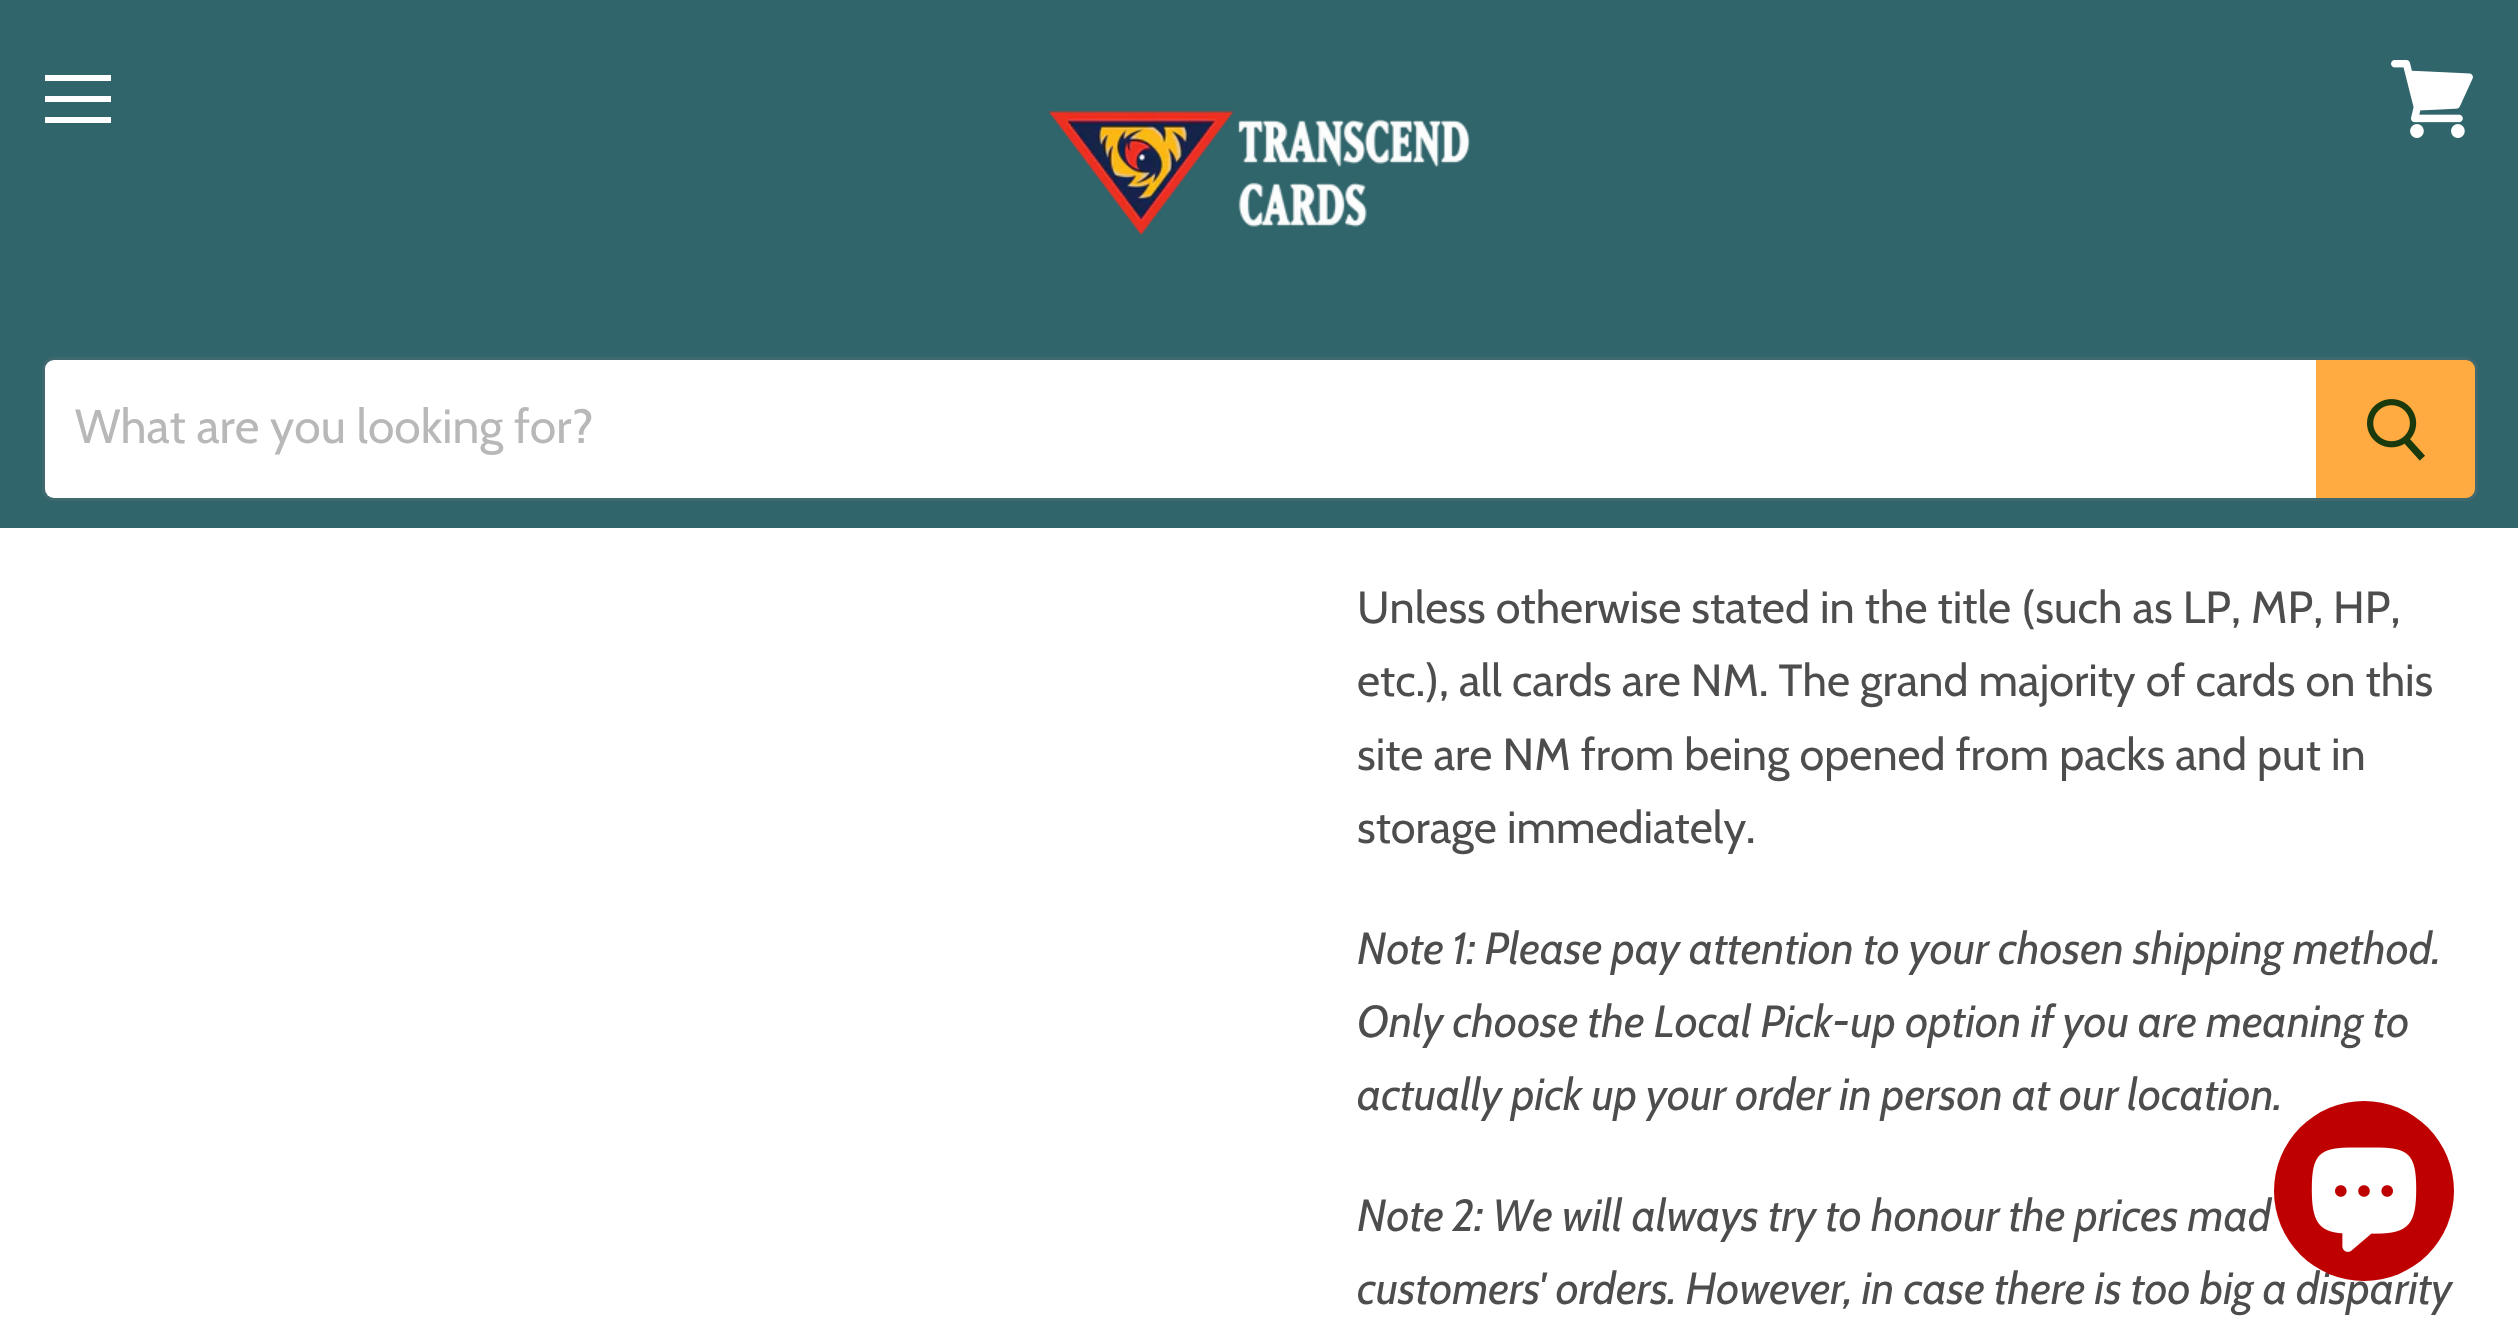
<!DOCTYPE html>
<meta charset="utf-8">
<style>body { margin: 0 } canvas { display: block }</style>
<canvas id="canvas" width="2518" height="1344"></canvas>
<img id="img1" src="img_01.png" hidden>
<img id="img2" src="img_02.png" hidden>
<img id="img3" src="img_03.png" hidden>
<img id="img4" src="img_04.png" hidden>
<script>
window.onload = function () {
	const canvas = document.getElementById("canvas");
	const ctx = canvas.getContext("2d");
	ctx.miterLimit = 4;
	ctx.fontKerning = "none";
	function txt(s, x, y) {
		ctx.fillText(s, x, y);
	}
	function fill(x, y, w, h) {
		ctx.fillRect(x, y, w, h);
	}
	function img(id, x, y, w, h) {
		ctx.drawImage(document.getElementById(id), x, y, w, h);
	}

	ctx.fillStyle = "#FFFFFF";
	fill(0, 0, 2518, 1344);
	ctx.fillStyle = "#30656B";
	fill(0, 0, 2518, 528);
	ctx.fillStyle = "#FFFFFF";
	fill(45, 75, 66, 6);
	fill(45, 96, 66, 6);
	fill(45, 117, 66, 6);
	img("img1", 2391, 60, 82, 78);
	img("img2", 1048, 110, 423, 126);
	ctx.beginPath();
	ctx.roundRect(43.5, 358.5, 2433, 141, 10.5);
	ctx.strokeStyle = "rgba(127, 127, 127, 0.2)";
	ctx.lineWidth = 3;
	ctx.stroke();
	ctx.beginPath();
	ctx.roundRect(45, 360, 2271, 138, [9, 0, 0, 9]);
	ctx.fill();
	ctx.fillStyle = "#FFAB41";
	ctx.beginPath();
	ctx.roundRect(2317.5, 361.5, 156, 135, [0, 7.5, 7.5, 0]);
	ctx.fill();
	ctx.strokeStyle = "#FFAB41";
	ctx.stroke();
	img("img3", 2367, 399, 58, 62);
	ctx.font = "48px Cabin";
	ctx.fillStyle = "#B8B8B8";
	txt("What are you looking for?", 75, 443);
	ctx.font = "45px Cabin";
	ctx.fillStyle = "#4D4D4D";
	txt("Unless otherwise stated in the title (such as LP, MP,", 1357, 623);
	txt("HP,", 2333, 623);
	txt("etc.), all cards are NM. The grand majority of cards on this", 1357, 696);
	txt("site are NM from being opened from packs and put in", 1357, 770);
	txt("storage immediately.", 1357, 843);
	ctx.font = "italic 45px Cabin";
	txt("Note 1: Please pay attention to your chosen shipping method.", 1357, 964);
	txt("Only choose the Local Pick-up option if you are meaning to", 1357, 1037);
	txt("actually pick up your order in person at our location.", 1357, 1110);
	txt("Note 2: We will always try to honour the prices mad", 1357, 1231);
	txt("customers' orders. However, in case there is too big a disparity", 1357, 1304);
	ctx.fillStyle = "#BF0000";
	ctx.beginPath();
	ctx.arc(2364, 1191, 90, 0, Math.PI * 2);
	ctx.fill();
	img("img4", 2311, 1147, 106, 105);
};
</script>
